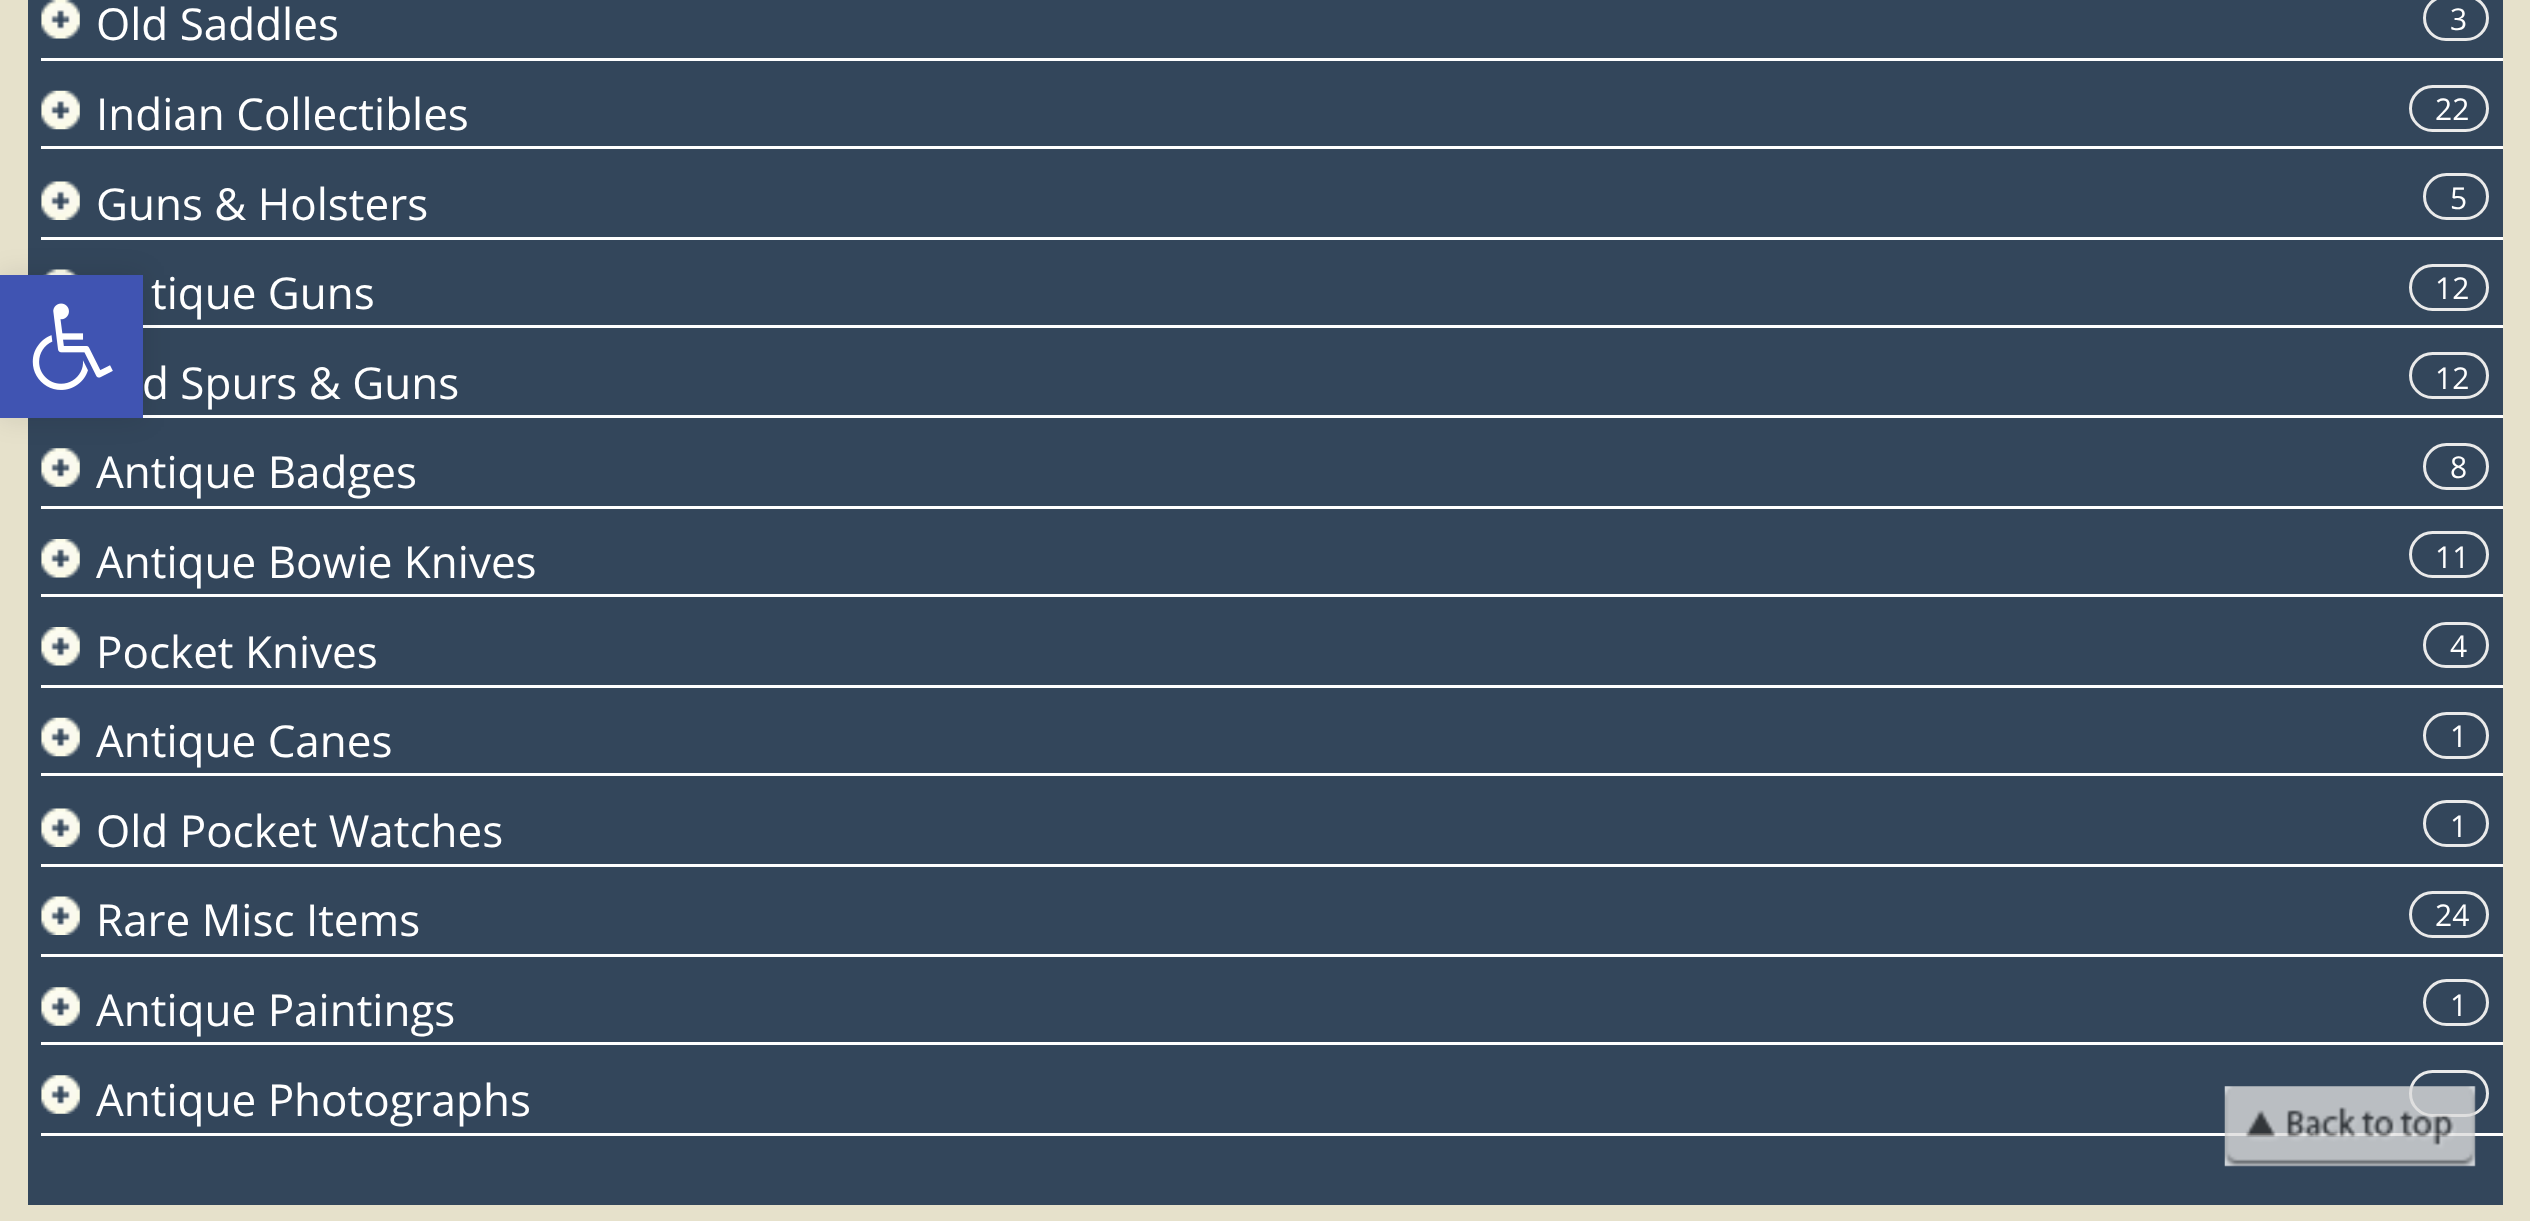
<!DOCTYPE html>
<meta charset="utf-8">
<style>body { margin: 0 } canvas { display: block }</style>
<canvas id="canvas" width="2530" height="1221"></canvas>
<img id="img1" src="img_05.png" hidden>
<img id="img2" src="img_06.png" hidden>
<img id="img3" src="img_01.png" hidden>
<img id="img4" src="img_02.png" hidden>
<img id="img5" src="img_03.png" hidden>
<img id="img6" src="img_04.png" hidden>
<img id="img7" src="img_07.png" hidden>
<img id="img8" src="img_08.png" hidden>
<script>
window.onload = function () {
	const canvas = document.getElementById("canvas");
	const ctx = canvas.getContext("2d");
	ctx.miterLimit = 4;
	ctx.fontKerning = "normal";
	function txt(s, x, y) {
		ctx.fillText(s, x, y);
	}
	function fill(x, y, w, h) {
		ctx.fillRect(x, y, w, h);
	}
	function img(id, x, y, w, h) {
		ctx.drawImage(document.getElementById(id), x, y, w, h);
	}

	ctx.fillStyle = "#E6E1CB";
	fill(0, 0, 2530, 1221);
	ctx.fillStyle = "#33465B";
	fill(28, 0, 2475, 1205);
	ctx.fillStyle = "#FFFFFF";
	fill(41, 237, 2462, 3);
	img("img1", 43, 269, 35, 6);
	fill(143, 325, 2360, 3);
	fill(143, 415, 2360, 3);
	img("img2", 41, 448, 39, 39);
	ctx.fillStyle = "rgba(0, 0, 0, 0.1)";
	ctx.filter = "blur(14px)";
	ctx.beginPath();
	ctx.rect(0, 275, 143, 143);
	ctx.fill();
	ctx.filter = "none";
	ctx.fillStyle = "#4054B2";
	fill(0, 275, 143, 143);
	img("img3", 32, 303, 81, 87);
	img("img4", 41, 0, 39, 39);
	ctx.fillStyle = "#FFFFFF";
	fill(41, 58, 2462, 3);
	ctx.beginPath();
	ctx.roundRect(2424.5, -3.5, 63, 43, 21.5);
	ctx.strokeStyle = "#EAEAEA";
	ctx.lineWidth = 3;
	ctx.stroke();
	img("img5", 41, 90, 39, 40);
	fill(41, 146, 2462, 3);
	ctx.beginPath();
	ctx.roundRect(2410.5, 86.5, 77, 44, 22);
	ctx.stroke();
	img("img6", 41, 181, 39, 39);
	ctx.beginPath();
	ctx.roundRect(2424.5, 174.5, 63, 44, 22);
	ctx.stroke();
	ctx.beginPath();
	ctx.roundRect(2410.5, 265.5, 77, 44, 22);
	ctx.stroke();
	ctx.beginPath();
	ctx.roundRect(2410.5, 353.5, 77, 44, 22);
	ctx.stroke();
	fill(41, 506, 2462, 3);
	ctx.beginPath();
	ctx.roundRect(2424.5, 444.5, 63, 44, 22);
	ctx.stroke();
	img("img7", 41, 539, 39, 39);
	fill(41, 594, 2462, 3);
	ctx.beginPath();
	ctx.roundRect(2410.5, 532.5, 77, 44, 22);
	ctx.stroke();
	img("img7", 41, 627, 39, 39);
	fill(41, 685, 2462, 3);
	ctx.beginPath();
	ctx.roundRect(2424.5, 623.5, 63, 43, 21.5);
	ctx.stroke();
	img("img5", 41, 717, 39, 40);
	fill(41, 773, 2462, 3);
	ctx.beginPath();
	ctx.roundRect(2424.5, 713.5, 63, 44, 22);
	ctx.stroke();
	img("img6", 41, 808, 39, 39);
	fill(41, 864, 2462, 3);
	ctx.beginPath();
	ctx.roundRect(2424.5, 801.5, 63, 44, 22);
	ctx.stroke();
	img("img6", 41, 896, 39, 39);
	fill(41, 954, 2462, 3);
	ctx.beginPath();
	ctx.roundRect(2410.5, 892.5, 77, 44, 22);
	ctx.stroke();
	img("img2", 41, 987, 39, 39);
	fill(41, 1042, 2462, 3);
	ctx.beginPath();
	ctx.roundRect(2424.5, 980.5, 63, 44, 22);
	ctx.stroke();
	img("img2", 41, 1075, 39, 39);
	fill(41, 1133, 2462, 3);
	ctx.beginPath();
	ctx.roundRect(2410.5, 1071.5, 77, 44, 22);
	ctx.stroke();
	img("img8", 2224, 1086, 252, 81);
	ctx.font = "44px Open Sans";
	txt("Old Saddles", 96, 40);
	ctx.font = "30px Open Sans";
	txt("3", 2450, 30);
	ctx.font = "44px Open Sans";
	txt("Indian Collectibles", 96, 130);
	ctx.font = "30px Open Sans";
	txt("22", 2435, 120);
	ctx.font = "44px Open Sans";
	txt("Guns & Holsters", 96, 220);
	ctx.font = "30px Open Sans";
	txt("5", 2450, 209);
	ctx.font = "44px Open Sans";
	txt("tique Guns", 151, 309);
	ctx.font = "30px Open Sans";
	txt("12", 2435, 299);
	ctx.font = "44px Open Sans";
	txt("d Spurs & Guns", 142, 399);
	ctx.font = "30px Open Sans";
	txt("12", 2435, 389);
	ctx.font = "44px Open Sans";
	txt("Antique Badges", 96, 488);
	ctx.font = "30px Open Sans";
	txt("8", 2450, 478);
	ctx.font = "44px Open Sans";
	txt("Antique Bowie Knives", 96, 578);
	ctx.font = "30px Open Sans";
	txt("11", 2435, 568);
	ctx.font = "44px Open Sans";
	txt("Pocket Knives", 96, 668);
	ctx.font = "30px Open Sans";
	txt("4", 2450, 657);
	ctx.font = "44px Open Sans";
	txt("Antique Canes", 96, 757);
	ctx.font = "30px Open Sans";
	txt("1", 2450, 747);
	ctx.font = "44px Open Sans";
	txt("Old Pocket Watches", 96, 847);
	ctx.font = "30px Open Sans";
	txt("1", 2450, 837);
	ctx.font = "44px Open Sans";
	txt("Rare Misc Items", 96, 936);
	ctx.font = "30px Open Sans";
	txt("24", 2435, 926);
	ctx.font = "44px Open Sans";
	txt("Antique Paintings", 96, 1026);
	ctx.font = "30px Open Sans";
	txt("1", 2450, 1016);
	ctx.font = "44px Open Sans";
	txt("Antique Photographs", 96, 1116);
};
</script>
